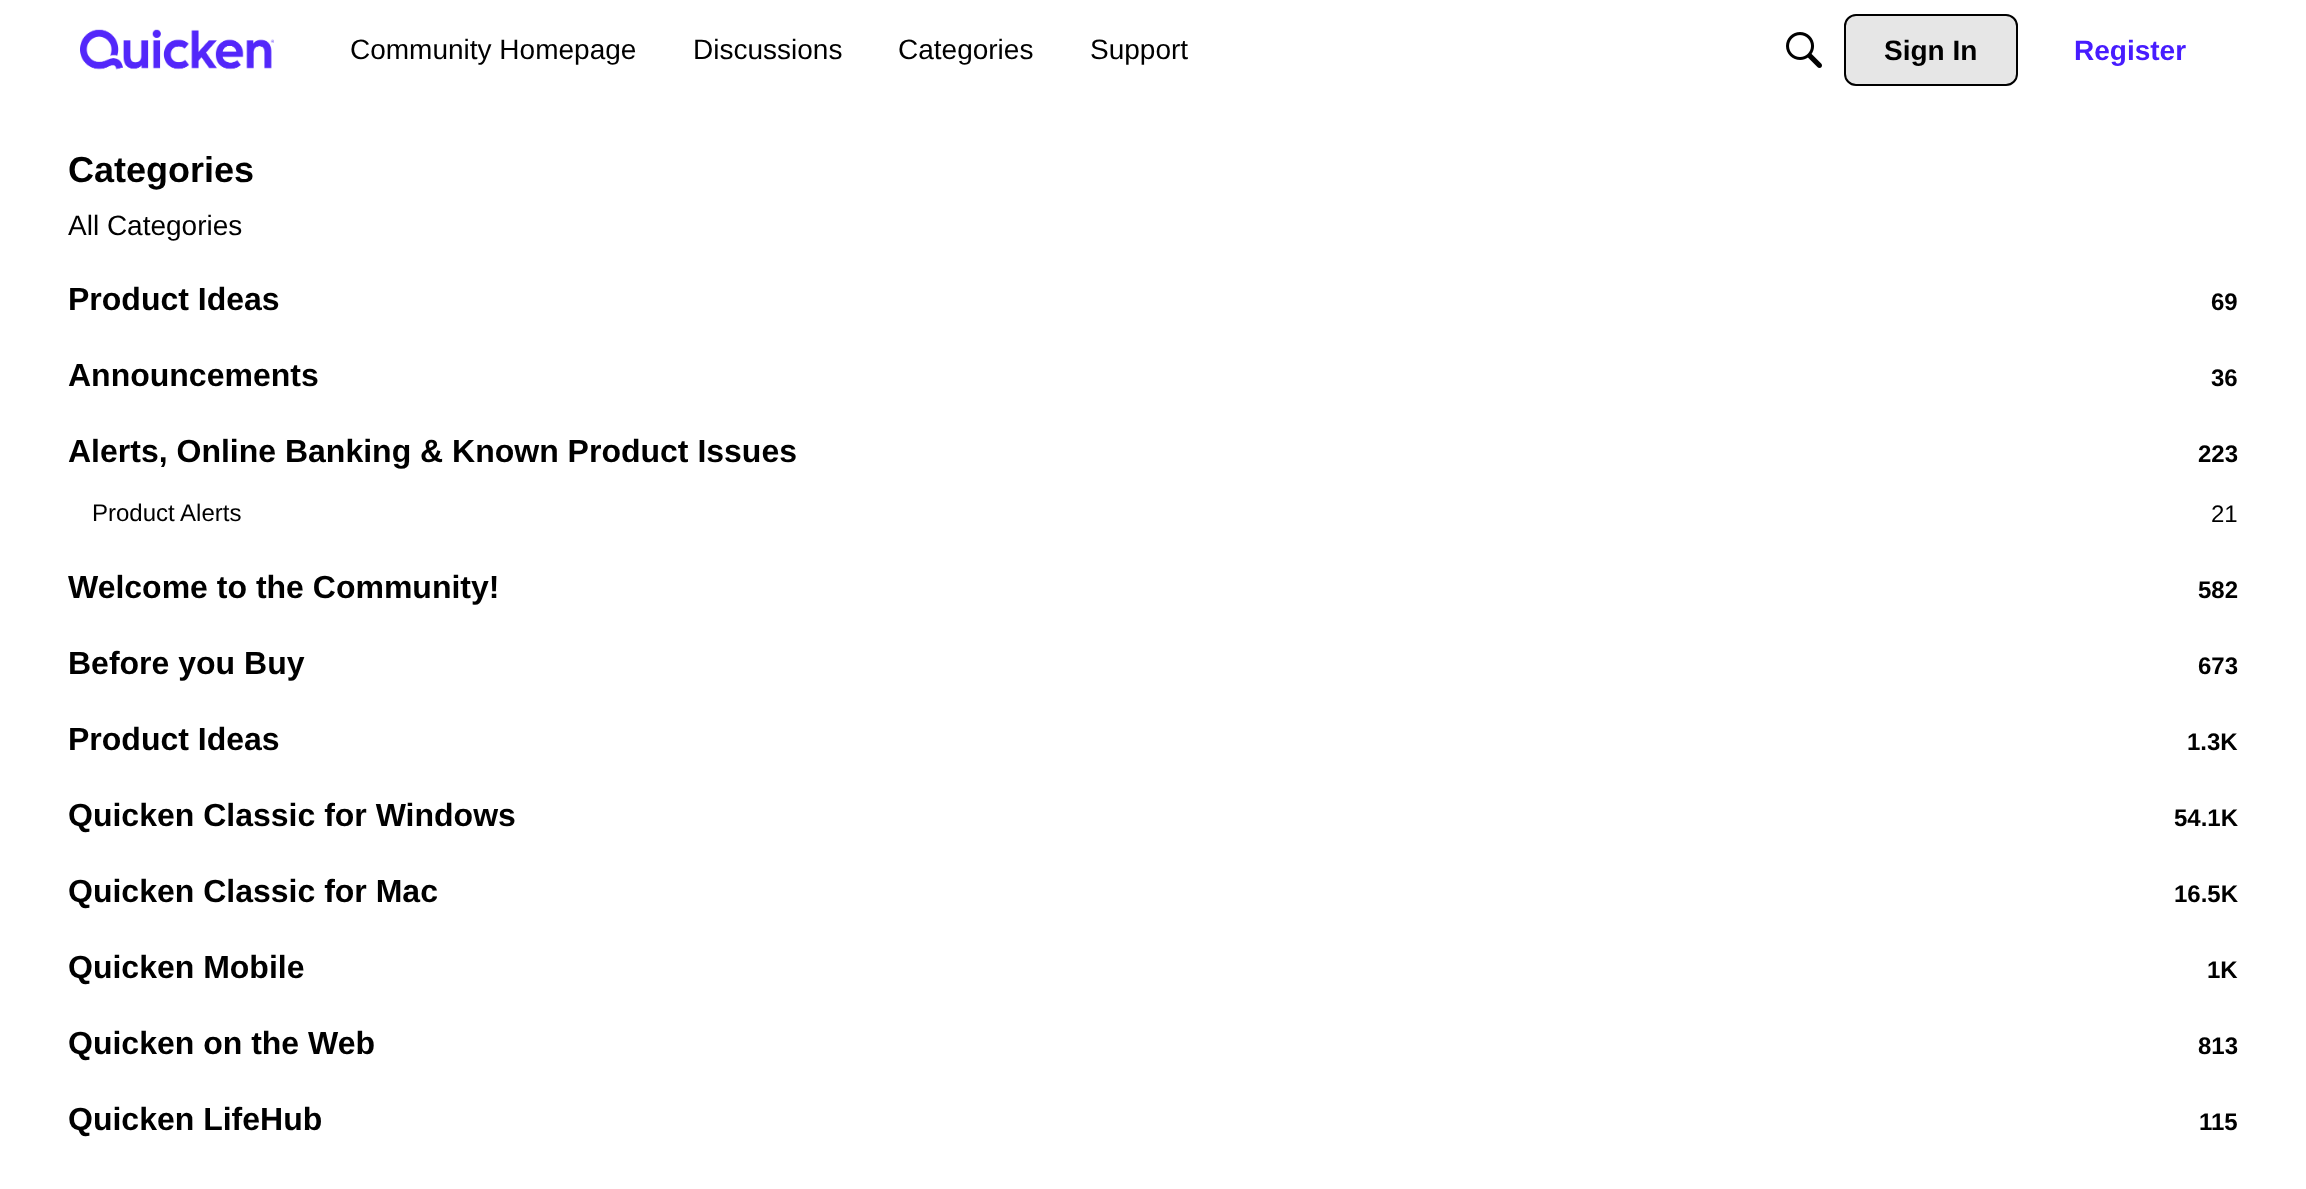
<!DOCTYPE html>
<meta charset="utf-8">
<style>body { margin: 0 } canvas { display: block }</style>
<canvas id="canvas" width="2306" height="1189"></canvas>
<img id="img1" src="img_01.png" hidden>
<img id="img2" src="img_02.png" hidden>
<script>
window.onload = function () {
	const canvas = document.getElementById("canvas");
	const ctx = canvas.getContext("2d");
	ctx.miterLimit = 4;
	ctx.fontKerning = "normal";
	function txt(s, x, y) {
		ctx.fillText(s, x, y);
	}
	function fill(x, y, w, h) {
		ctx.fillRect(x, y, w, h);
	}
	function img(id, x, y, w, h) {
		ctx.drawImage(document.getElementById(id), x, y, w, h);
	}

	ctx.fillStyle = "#FFFFFF";
	fill(0, 0, 2306, 1189);
	img("img1", 80, 29, 194, 41);
	img("img2", 1786, 32, 36, 36);
	ctx.fillStyle = "#E6E6E6";
	ctx.beginPath();
	ctx.roundRect(1845, 15, 172, 70, 11);
	ctx.fill();
	ctx.strokeStyle = "#000000";
	ctx.lineWidth = 2;
	ctx.stroke();
	ctx.font = "28px Liberation Sans";
	ctx.fillStyle = "#000000";
	txt("Community Homepage", 350, 59);
	txt("Discussions", 693, 59);
	txt("Categories", 898, 59);
	txt("Support", 1090, 59);
	ctx.font = "bold 28px Liberation Sans";
	txt("Sign In", 1884, 60);
	ctx.fillStyle = "#471CFF";
	txt("Register", 2074, 60);
	ctx.font = "bold 36px Liberation Sans";
	ctx.fillStyle = "#000000";
	txt("Categories", 68, 182);
	ctx.font = "28px Liberation Sans";
	txt("All Categories", 68, 235);
	ctx.font = "bold 32px Liberation Sans";
	txt("Product Ideas", 68, 310);
	ctx.font = "bold 24px Liberation Sans";
	txt("69", 2211, 310);
	ctx.font = "bold 32px Liberation Sans";
	txt("Announcements", 68, 386);
	ctx.font = "bold 24px Liberation Sans";
	txt("36", 2211, 386);
	ctx.font = "bold 32px Liberation Sans";
	txt("Alerts, Online Banking & Known Product Issues", 68, 462);
	ctx.font = "bold 24px Liberation Sans";
	txt("223", 2198, 462);
	ctx.font = "24px Liberation Sans";
	txt("Product Alerts", 92, 521);
	txt("21", 2211, 522);
	ctx.font = "bold 32px Liberation Sans";
	txt("Welcome to the Community!", 68, 598);
	ctx.font = "bold 24px Liberation Sans";
	txt("582", 2198, 598);
	ctx.font = "bold 32px Liberation Sans";
	txt("Before you Buy", 68, 674);
	ctx.font = "bold 24px Liberation Sans";
	txt("673", 2198, 674);
	ctx.font = "bold 32px Liberation Sans";
	txt("Product Ideas", 68, 750);
	ctx.font = "bold 24px Liberation Sans";
	txt("1.3K", 2187, 750);
	ctx.font = "bold 32px Liberation Sans";
	txt("Quicken Classic for Windows", 68, 826);
	ctx.font = "bold 24px Liberation Sans";
	txt("54.1K", 2174, 826);
	ctx.font = "bold 32px Liberation Sans";
	txt("Quicken Classic for Mac", 68, 902);
	ctx.font = "bold 24px Liberation Sans";
	txt("16.5K", 2174, 902);
	ctx.font = "bold 32px Liberation Sans";
	txt("Quicken Mobile", 68, 978);
	ctx.font = "bold 24px Liberation Sans";
	txt("1K", 2207, 978);
	ctx.font = "bold 32px Liberation Sans";
	txt("Quicken on the Web", 68, 1054);
	ctx.font = "bold 24px Liberation Sans";
	txt("813", 2198, 1054);
	ctx.font = "bold 32px Liberation Sans";
	txt("Quicken LifeHub", 68, 1130);
	ctx.font = "bold 24px Liberation Sans";
	txt("115", 2199, 1130);
};
</script>
